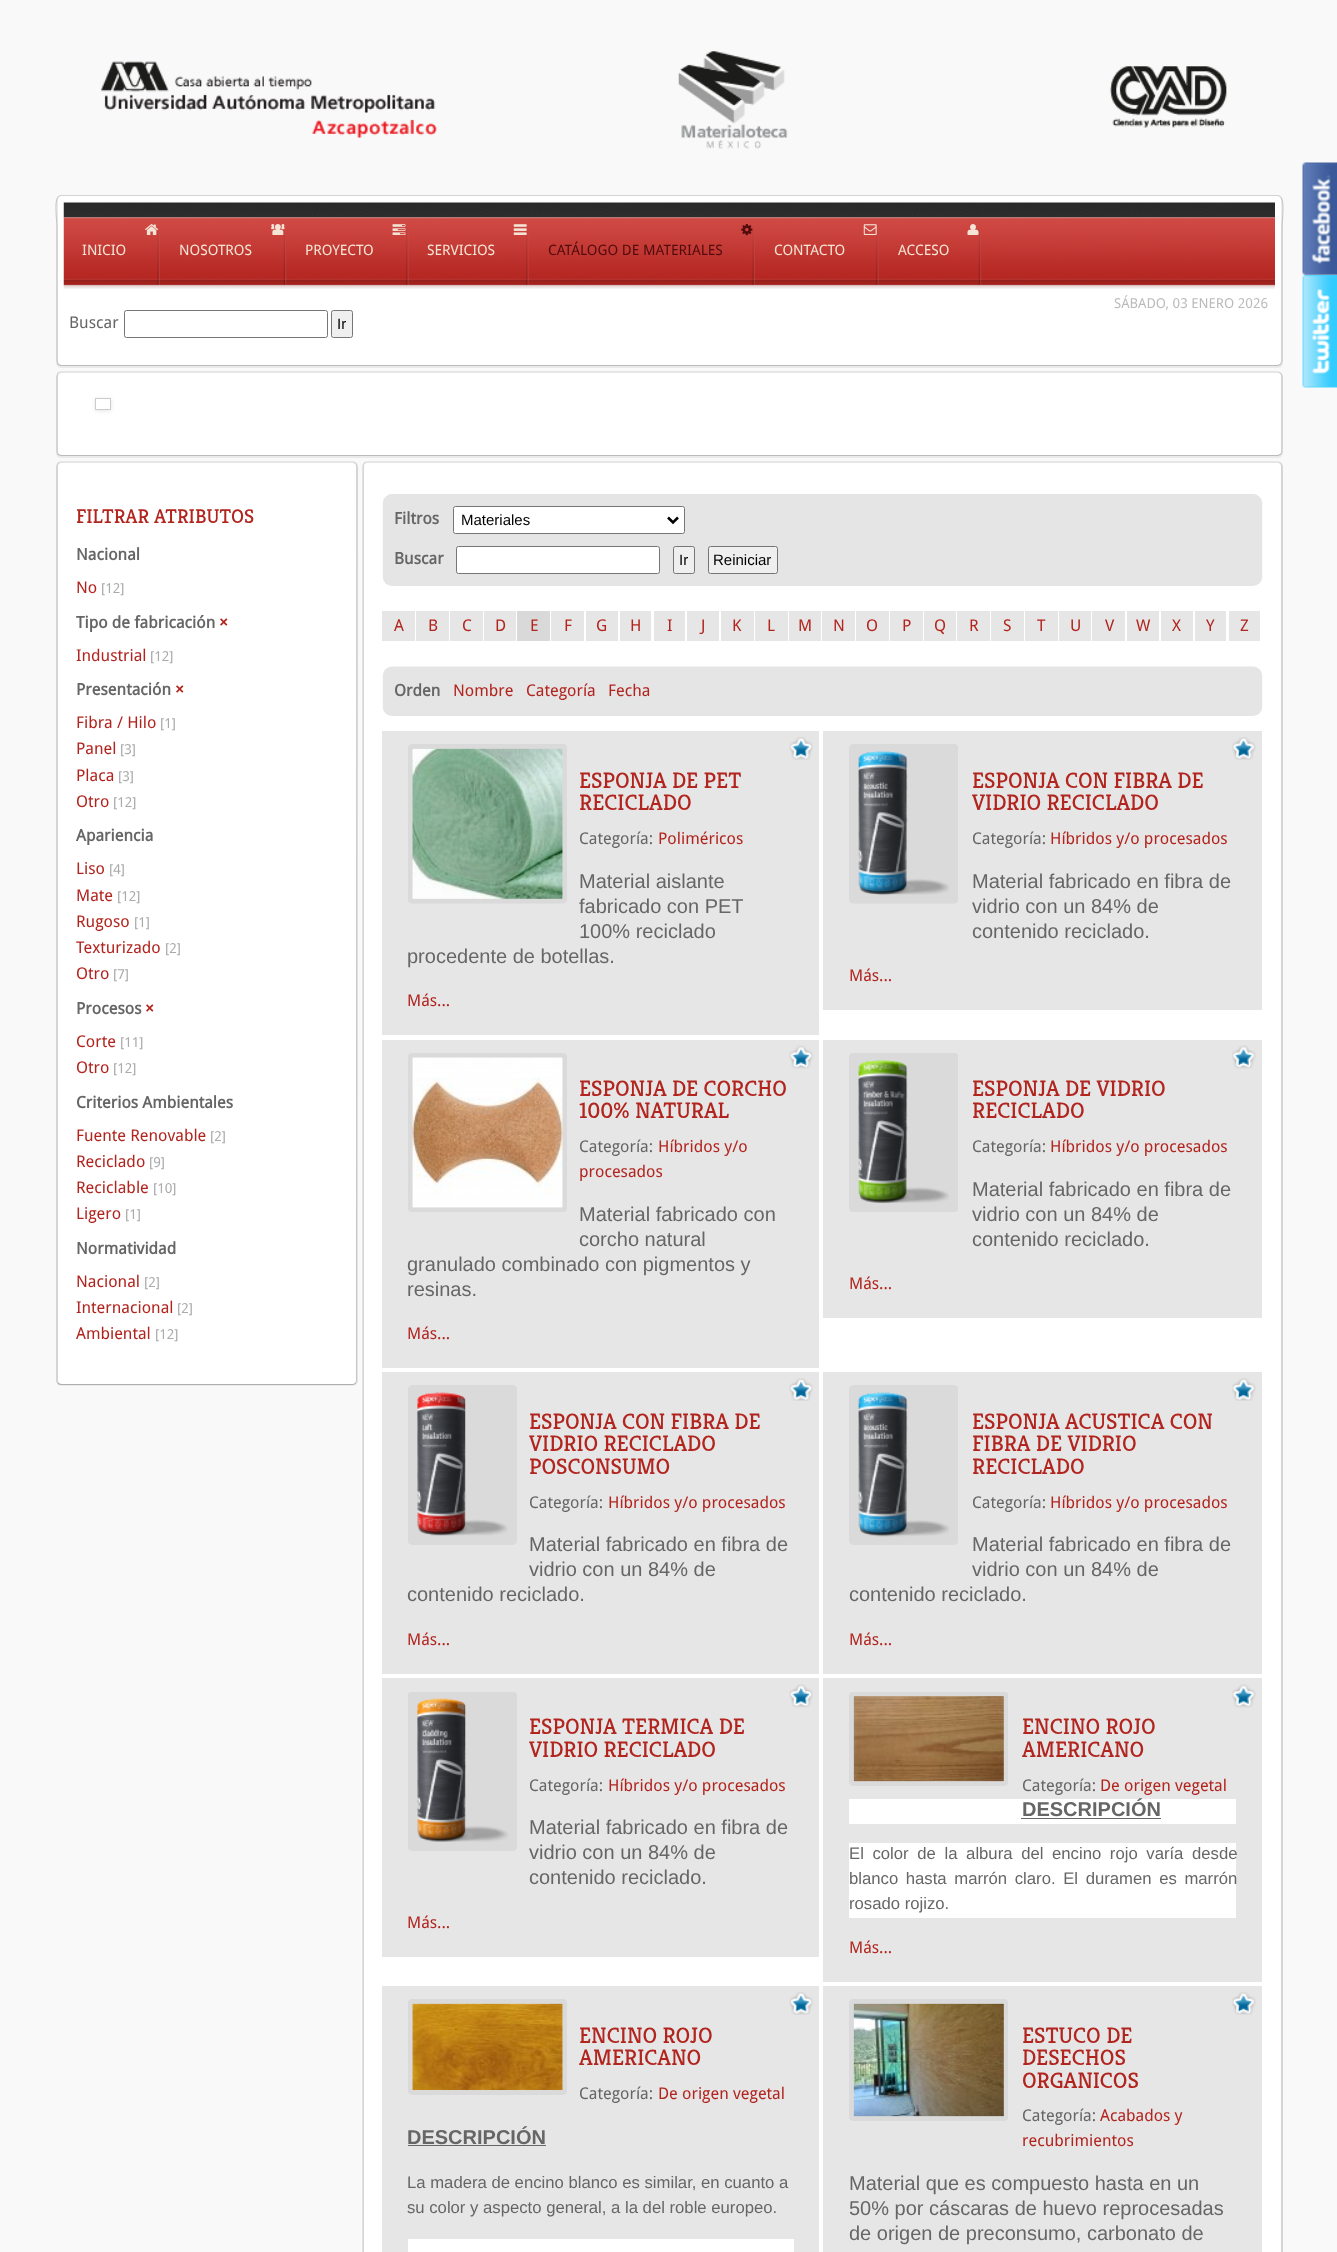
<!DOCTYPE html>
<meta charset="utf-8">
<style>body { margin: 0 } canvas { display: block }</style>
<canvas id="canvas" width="1337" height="2252"></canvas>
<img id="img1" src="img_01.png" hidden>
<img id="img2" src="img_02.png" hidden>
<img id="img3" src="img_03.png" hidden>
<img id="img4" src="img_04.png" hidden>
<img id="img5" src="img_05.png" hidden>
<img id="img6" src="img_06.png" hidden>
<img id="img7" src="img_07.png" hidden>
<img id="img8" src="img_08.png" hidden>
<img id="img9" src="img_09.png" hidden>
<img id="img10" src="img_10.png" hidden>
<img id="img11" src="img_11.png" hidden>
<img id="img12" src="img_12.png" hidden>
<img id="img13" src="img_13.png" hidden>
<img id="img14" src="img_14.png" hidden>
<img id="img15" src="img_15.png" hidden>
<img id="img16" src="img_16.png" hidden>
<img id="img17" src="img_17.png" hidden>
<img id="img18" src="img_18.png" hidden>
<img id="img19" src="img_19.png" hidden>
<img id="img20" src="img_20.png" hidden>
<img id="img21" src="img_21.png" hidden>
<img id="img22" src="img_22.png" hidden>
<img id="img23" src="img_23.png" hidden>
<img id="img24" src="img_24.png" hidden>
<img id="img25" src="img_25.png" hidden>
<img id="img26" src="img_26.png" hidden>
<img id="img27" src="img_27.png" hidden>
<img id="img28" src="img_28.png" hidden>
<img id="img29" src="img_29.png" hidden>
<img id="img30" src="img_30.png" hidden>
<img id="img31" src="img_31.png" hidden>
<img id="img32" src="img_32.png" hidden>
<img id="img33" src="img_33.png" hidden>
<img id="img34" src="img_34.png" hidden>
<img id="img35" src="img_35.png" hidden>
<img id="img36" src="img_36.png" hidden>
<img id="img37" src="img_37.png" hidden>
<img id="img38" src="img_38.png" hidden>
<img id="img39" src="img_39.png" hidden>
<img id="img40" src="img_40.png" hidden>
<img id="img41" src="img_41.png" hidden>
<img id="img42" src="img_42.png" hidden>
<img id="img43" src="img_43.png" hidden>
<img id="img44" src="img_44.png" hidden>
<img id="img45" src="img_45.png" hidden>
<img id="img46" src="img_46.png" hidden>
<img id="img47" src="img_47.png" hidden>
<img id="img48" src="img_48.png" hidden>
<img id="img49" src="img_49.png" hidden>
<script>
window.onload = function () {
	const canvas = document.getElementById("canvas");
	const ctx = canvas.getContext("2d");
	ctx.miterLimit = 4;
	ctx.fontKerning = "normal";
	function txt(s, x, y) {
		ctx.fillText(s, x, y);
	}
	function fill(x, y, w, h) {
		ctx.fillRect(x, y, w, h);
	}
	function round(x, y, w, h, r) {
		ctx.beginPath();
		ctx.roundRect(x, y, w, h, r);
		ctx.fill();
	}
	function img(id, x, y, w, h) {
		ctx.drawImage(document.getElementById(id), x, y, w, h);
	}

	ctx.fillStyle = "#F9F9F9";
	fill(0, 0, 1337, 2252);
	img("img1", 101, 51, 1126, 98);
	ctx.fillStyle = "rgba(0, 0, 0, 0.06)";
	ctx.filter = "blur(0.5px)";
	ctx.beginPath();
	ctx.roundRect(56, 196, 1227, 172, 5);
	ctx.fill();
	ctx.filter = "none";
	ctx.fillStyle = "#FFFFFF";
	round(58, 196, 1223, 169, 4);
	ctx.beginPath();
	ctx.moveTo(1280.5, 364.5);
	ctx.lineTo(1277.5, 365.5);
	ctx.lineTo(61, 365.5);
	ctx.lineTo(58, 364.5);
	ctx.strokeStyle = "#BBBBBB";
	ctx.lineWidth = 1.2;
	ctx.stroke();
	ctx.beginPath();
	ctx.moveTo(58, 364.5);
	ctx.lineTo(57, 361);
	ctx.lineTo(57, 227);
	ctx.bezierCurveTo(57, 219, 52.5, 195.5, 61, 195.5);
	ctx.lineTo(1277.5, 195.5);
	ctx.bezierCurveTo(1286.5, 195.5, 1282, 219, 1282, 227);
	ctx.lineTo(1282, 361);
	ctx.lineTo(1280.5, 364.5);
	ctx.strokeStyle = "rgba(0, 0, 0, 0.15)";
	ctx.stroke();
	img("img2", 63, 202, 1212, 16);
	img("img3", 63, 217, 1212, 72);
	img("img4", 157, 227, 3, 58);
	img("img5", 145, 224, 14, 11);
	img("img6", 283, 226, 4, 59);
	img("img7", 271, 224, 14, 11);
	img("img8", 406, 229, 3, 56);
	img("img9", 392, 224, 14, 11);
	img("img10", 526, 229, 3, 56);
	img("img11", 513, 224, 14, 11);
	img("img12", 752, 227, 3, 58);
	img("img13", 741, 224, 12, 12);
	img("img14", 876, 229, 3, 56);
	img("img15", 863, 224, 14, 11);
	img("img16", 978, 226, 4, 59);
	img("img17", 967, 224, 12, 11);
	ctx.beginPath();
	ctx.roundRect(124.5, 310.5, 203, 27, 2);
	ctx.strokeStyle = "#767676";
	ctx.lineWidth = 1;
	ctx.stroke();
	ctx.fillStyle = "#EFEFEF";
	ctx.beginPath();
	ctx.roundRect(331.5, 310.5, 21, 27, 2);
	ctx.fill();
	ctx.stroke();
	img("img18", 1302, 162, 35, 114);
	img("img19", 1302, 275, 35, 113);
	ctx.fillStyle = "rgba(0, 0, 0, 0.06)";
	ctx.filter = "blur(0.5px)";
	ctx.beginPath();
	ctx.roundRect(56, 373, 1227, 85, 5);
	ctx.fill();
	ctx.filter = "none";
	ctx.fillStyle = "#FFFFFF";
	round(58, 373, 1223, 82, 4);
	ctx.beginPath();
	ctx.moveTo(1280.5, 454.5);
	ctx.lineTo(1277.5, 455.5);
	ctx.lineTo(61, 455.5);
	ctx.lineTo(58, 454.5);
	ctx.strokeStyle = "#BBBBBB";
	ctx.lineWidth = 1.2;
	ctx.stroke();
	ctx.beginPath();
	ctx.moveTo(58, 454.5);
	ctx.bezierCurveTo(57.5, 453.5, 57, 452.5, 57, 451);
	ctx.lineTo(57, 376);
	ctx.bezierCurveTo(57, 375, 57.5, 374, 58, 373);
	ctx.bezierCurveTo(59, 372.5, 60, 372, 61, 372);
	ctx.lineTo(1277.5, 372);
	ctx.bezierCurveTo(1278.5, 372, 1280, 372.5, 1280.5, 373);
	ctx.bezierCurveTo(1281.5, 374, 1282, 375, 1282, 376);
	ctx.lineTo(1282, 451);
	ctx.bezierCurveTo(1282, 452.5, 1281.5, 453.5, 1280.5, 454.5);
	ctx.strokeStyle = "rgba(0, 0, 0, 0.15)";
	ctx.stroke();
	ctx.save();
	ctx.beginPath();
	ctx.moveTo(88, 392);
	ctx.lineTo(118, 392);
	ctx.lineTo(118, 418);
	ctx.lineTo(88, 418);
	ctx.closePath();
	ctx.moveTo(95, 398);
	ctx.lineTo(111, 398);
	ctx.lineTo(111, 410);
	ctx.lineTo(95, 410);
	ctx.closePath();
	ctx.clip("evenodd");
	ctx.fillStyle = "rgba(0, 0, 0, 0.1)";
	ctx.filter = "blur(2px)";
	ctx.beginPath();
	ctx.rect(95, 399, 16, 12);
	ctx.fill();
	ctx.filter = "none";
	ctx.restore();
	ctx.strokeStyle = "#CCCCCC";
	ctx.lineWidth = 1;
	ctx.strokeRect(95.5, 398.5, 15, 11);
	ctx.fillStyle = "rgba(0, 0, 0, 0.06)";
	ctx.filter = "blur(0.5px)";
	ctx.beginPath();
	ctx.roundRect(56, 463, 302, 923, 5);
	ctx.fill();
	ctx.filter = "none";
	ctx.fillStyle = "#FFFFFF";
	round(58, 463, 298, 921, 4);
	ctx.beginPath();
	ctx.moveTo(355.5, 1383);
	ctx.bezierCurveTo(355, 1384, 353.5, 1384.5, 352.5, 1384.5);
	ctx.lineTo(61, 1384.5);
	ctx.bezierCurveTo(60, 1384.5, 59, 1384, 58, 1383);
	ctx.strokeStyle = "rgba(0, 0, 0, 0.25)";
	ctx.lineWidth = 1.2;
	ctx.stroke();
	ctx.beginPath();
	ctx.moveTo(58, 1383);
	ctx.lineTo(57, 1381.5);
	ctx.lineTo(57, 466);
	ctx.bezierCurveTo(57, 464, 59, 462, 61, 462);
	ctx.lineTo(352.5, 462);
	ctx.bezierCurveTo(355, 462, 357, 464, 357, 466);
	ctx.lineTo(356.5, 1381.5);
	ctx.lineTo(355.5, 1383);
	ctx.strokeStyle = "rgba(0, 0, 0, 0.15)";
	ctx.stroke();
	ctx.fillStyle = "rgba(0, 0, 0, 0.06)";
	ctx.filter = "blur(0.5px)";
	ctx.beginPath();
	ctx.roundRect(363, 463, 920, 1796, 5);
	ctx.fill();
	ctx.filter = "none";
	ctx.fillStyle = "#FFFFFF";
	round(364, 463, 917, 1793, 4);
	ctx.beginPath();
	ctx.moveTo(364.5, 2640.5);
	ctx.bezierCurveTo(363.5, 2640, 363, 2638.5, 363, 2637.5);
	ctx.lineTo(363, 466);
	ctx.bezierCurveTo(363, 465, 363.5, 464, 364.5, 463);
	ctx.bezierCurveTo(365, 462.5, 366.5, 462, 367.5, 462);
	ctx.lineTo(1277.5, 462);
	ctx.bezierCurveTo(1278.5, 462, 1280, 462.5, 1280.5, 463);
	ctx.bezierCurveTo(1281.5, 464, 1282, 465, 1282, 466);
	ctx.lineTo(1282, 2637.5);
	ctx.bezierCurveTo(1282, 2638.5, 1281.5, 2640, 1280.5, 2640.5);
	ctx.stroke();
	img("img20", 382, 494, 881, 92);
	ctx.beginPath();
	ctx.roundRect(453.5, 506.5, 231, 27, 2);
	ctx.fill();
	ctx.strokeStyle = "#767676";
	ctx.lineWidth = 1;
	ctx.stroke();
	ctx.beginPath();
	ctx.moveTo(668, 517.5);
	ctx.lineTo(673, 522.5);
	ctx.lineTo(678, 517.5);
	ctx.strokeStyle = "#000000";
	ctx.lineWidth = 2.5;
	ctx.stroke();
	ctx.beginPath();
	ctx.roundRect(456.5, 546.5, 203, 27, 2);
	ctx.fill();
	ctx.strokeStyle = "#767676";
	ctx.lineWidth = 1;
	ctx.stroke();
	ctx.fillStyle = "#EFEFEF";
	ctx.beginPath();
	ctx.roundRect(673.5, 546.5, 21, 27, 2);
	ctx.fill();
	ctx.stroke();
	ctx.beginPath();
	ctx.roundRect(708.5, 546.5, 69, 27, 2);
	ctx.fill();
	ctx.stroke();
	ctx.fillStyle = "#E6E6E6";
	fill(382, 611, 33, 30);
	fill(416, 611, 33, 30);
	fill(450, 611, 33, 30);
	fill(484, 611, 32, 30);
	ctx.fillStyle = "#D9D9D9";
	fill(517, 611, 33, 30);
	ctx.fillStyle = "#E6E6E6";
	fill(551, 611, 33, 30);
	fill(586, 611, 32, 30);
	fill(620, 611, 31, 30);
	fill(654, 611, 31, 30);
	fill(687, 611, 32, 30);
	fill(721, 611, 33, 30);
	fill(755, 611, 33, 30);
	fill(789, 611, 32, 30);
	fill(822, 611, 33, 30);
	fill(856, 611, 33, 30);
	fill(890, 611, 33, 30);
	fill(924, 611, 32, 30);
	fill(957, 611, 33, 30);
	fill(991, 611, 33, 30);
	fill(1025, 611, 33, 30);
	fill(1059, 611, 32, 30);
	fill(1092, 611, 33, 30);
	fill(1127, 611, 32, 30);
	fill(1161, 611, 32, 30);
	fill(1195, 611, 31, 30);
	fill(1229, 611, 31, 30);
	img("img21", 382, 666, 881, 50);
	fill(382, 731, 437, 304);
	img("img22", 408, 744, 159, 160);
	img("img23", 412, 748, 151, 151);
	img("img24", 789, 737, 24, 23);
	fill(823, 731, 439, 279);
	img("img25", 849, 744, 109, 160);
	img("img26", 858, 751, 91, 144);
	img("img27", 1232, 737, 24, 23);
	fill(382, 1040, 437, 328);
	img("img28", 408, 1053, 159, 159);
	img("img29", 412, 1057, 151, 151);
	img("img30", 789, 1045, 24, 24);
	fill(823, 1040, 439, 278);
	img("img31", 849, 1053, 109, 159);
	img("img32", 858, 1060, 91, 143);
	img("img33", 1232, 1045, 24, 24);
	fill(382, 1372, 437, 302);
	img("img34", 408, 1385, 109, 160);
	img("img35", 417, 1392, 90, 144);
	img("img36", 789, 1378, 24, 23);
	fill(823, 1372, 439, 302);
	img("img37", 849, 1385, 109, 160);
	img("img38", 858, 1392, 91, 145);
	img("img39", 1232, 1378, 24, 23);
	fill(382, 1678, 437, 279);
	img("img40", 408, 1692, 109, 159);
	img("img41", 417, 1698, 91, 144);
	img("img42", 789, 1684, 24, 24);
	fill(823, 1678, 439, 304);
	img("img43", 849, 1692, 159, 94);
	img("img44", 853, 1696, 151, 86);
	img("img45", 1232, 1684, 24, 24);
	ctx.fillStyle = "#FFFFFF";
	fill(849, 1799, 387, 25);
	ctx.fillStyle = "#666666";
	fill(1021, 1818, 140, 1);
	ctx.fillStyle = "#FFFFFF";
	fill(849, 1843, 387, 75);
	ctx.fillStyle = "#E6E6E6";
	fill(382, 1986, 437, 266);
	img("img46", 408, 1999, 159, 96);
	img("img47", 412, 2003, 151, 87);
	img("img24", 789, 1992, 24, 23);
	ctx.fillStyle = "#666666";
	fill(408, 2145, 138, 1);
	ctx.fillStyle = "#FFFFFF";
	fill(408, 2239, 386, 13);
	ctx.fillStyle = "#E6E6E6";
	fill(823, 1986, 439, 266);
	img("img48", 849, 1999, 159, 122);
	img("img49", 853, 2003, 151, 114);
	img("img27", 1232, 1992, 24, 23);
	ctx.font = "14.4px Droid Sans";
	ctx.fillStyle = "#F4E4D5";
	txt("INICIO", 82, 255);
	txt("NOSOTROS", 179, 255);
	txt("PROYECTO", 305, 255);
	txt("SERVICIOS", 427, 255);
	ctx.fillStyle = "#520C0E";
	txt("CATÁLOGO DE MATERIALES", 548, 255);
	ctx.fillStyle = "#F4E4D5";
	txt("CONTACTO", 774, 255);
	txt("ACCESO", 898, 255);
	ctx.font = "13.75px Droid Sans";
	ctx.fillStyle = "#BBBBBB";
	txt("SÁBADO, 03 ENERO 2026", 1114, 308);
	ctx.font = "16.25px Droid Sans";
	ctx.fillStyle = "#666666";
	txt("Buscar", 69, 328);
	ctx.font = "15px Liberation Sans";
	ctx.fillStyle = "#000000";
	txt("Ir", 337, 329);
	ctx.font = "20px Kreon";
	ctx.fillStyle = "#B2251F";
	txt("FILTRAR ATRIBUTOS", 76, 523);
	ctx.font = "bold 16.25px Droid Sans";
	ctx.fillStyle = "#666666";
	txt("Nacional", 76, 560);
	ctx.font = "16.25px Droid Sans";
	ctx.fillStyle = "#B2251F";
	txt("No", 76, 593);
	ctx.font = "13.75px Droid Sans";
	ctx.fillStyle = "#AAAAAA";
	txt("[12]", 101, 593);
	ctx.font = "bold 16.25px Droid Sans";
	ctx.fillStyle = "#666666";
	txt("Tipo de fabricación", 76, 628);
	ctx.fillStyle = "#B2251F";
	txt("×", 219, 628);
	ctx.font = "16.25px Droid Sans";
	txt("Industrial", 76, 661);
	ctx.font = "13.75px Droid Sans";
	ctx.fillStyle = "#AAAAAA";
	txt("[12]", 150, 661);
	ctx.font = "bold 16.25px Droid Sans";
	ctx.fillStyle = "#666666";
	txt("Presentación", 76, 695);
	ctx.fillStyle = "#B2251F";
	txt("×", 175, 695);
	ctx.font = "16.25px Droid Sans";
	txt("Fibra / Hilo", 76, 728);
	ctx.font = "13.75px Droid Sans";
	ctx.fillStyle = "#AAAAAA";
	txt("[1]", 160, 728);
	ctx.font = "16.25px Droid Sans";
	ctx.fillStyle = "#B2251F";
	txt("Panel", 76, 754);
	ctx.font = "13.75px Droid Sans";
	ctx.fillStyle = "#AAAAAA";
	txt("[3]", 120, 754);
	ctx.font = "16.25px Droid Sans";
	ctx.fillStyle = "#B2251F";
	txt("Placa", 76, 781);
	ctx.font = "13.75px Droid Sans";
	ctx.fillStyle = "#AAAAAA";
	txt("[3]", 118, 781);
	ctx.font = "16.25px Droid Sans";
	ctx.fillStyle = "#B2251F";
	txt("Otro", 76, 807);
	ctx.font = "13.75px Droid Sans";
	ctx.fillStyle = "#AAAAAA";
	txt("[12]", 113, 807);
	ctx.font = "bold 16.25px Droid Sans";
	ctx.fillStyle = "#666666";
	txt("Apariencia", 76, 841);
	ctx.font = "16.25px Droid Sans";
	ctx.fillStyle = "#B2251F";
	txt("Liso", 76, 874);
	ctx.font = "13.75px Droid Sans";
	ctx.fillStyle = "#AAAAAA";
	txt("[4]", 109, 874);
	ctx.font = "16.25px Droid Sans";
	ctx.fillStyle = "#B2251F";
	txt("Mate", 76, 901);
	ctx.font = "13.75px Droid Sans";
	ctx.fillStyle = "#AAAAAA";
	txt("[12]", 117, 901);
	ctx.font = "16.25px Droid Sans";
	ctx.fillStyle = "#B2251F";
	txt("Rugoso", 76, 927);
	ctx.font = "13.75px Droid Sans";
	ctx.fillStyle = "#AAAAAA";
	txt("[1]", 134, 927);
	ctx.font = "16.25px Droid Sans";
	ctx.fillStyle = "#B2251F";
	txt("Texturizado", 76, 953);
	ctx.font = "13.75px Droid Sans";
	ctx.fillStyle = "#AAAAAA";
	txt("[2]", 165, 953);
	ctx.font = "16.25px Droid Sans";
	ctx.fillStyle = "#B2251F";
	txt("Otro", 76, 979);
	ctx.font = "13.75px Droid Sans";
	ctx.fillStyle = "#AAAAAA";
	txt("[7]", 113, 979);
	ctx.font = "bold 16.25px Droid Sans";
	ctx.fillStyle = "#666666";
	txt("Procesos", 76, 1014);
	ctx.fillStyle = "#B2251F";
	txt("×", 145, 1014);
	ctx.font = "16.25px Droid Sans";
	txt("Corte", 76, 1047);
	ctx.font = "13.75px Droid Sans";
	ctx.fillStyle = "#AAAAAA";
	txt("[11]", 120, 1047);
	ctx.font = "16.25px Droid Sans";
	ctx.fillStyle = "#B2251F";
	txt("Otro", 76, 1073);
	ctx.font = "13.75px Droid Sans";
	ctx.fillStyle = "#AAAAAA";
	txt("[12]", 113, 1073);
	ctx.font = "bold 16.25px Droid Sans";
	ctx.fillStyle = "#666666";
	txt("Criterios Ambientales", 76, 1108);
	ctx.font = "16.25px Droid Sans";
	ctx.fillStyle = "#B2251F";
	txt("Fuente Renovable", 76, 1141);
	ctx.font = "13.75px Droid Sans";
	ctx.fillStyle = "#AAAAAA";
	txt("[2]", 210, 1141);
	ctx.font = "16.25px Droid Sans";
	ctx.fillStyle = "#B2251F";
	txt("Reciclado", 76, 1167);
	ctx.font = "13.75px Droid Sans";
	ctx.fillStyle = "#AAAAAA";
	txt("[9]", 149, 1167);
	ctx.font = "16.25px Droid Sans";
	ctx.fillStyle = "#B2251F";
	txt("Reciclable", 76, 1193);
	ctx.font = "13.75px Droid Sans";
	ctx.fillStyle = "#AAAAAA";
	txt("[10]", 153, 1193);
	ctx.font = "16.25px Droid Sans";
	ctx.fillStyle = "#B2251F";
	txt("Ligero", 76, 1219);
	ctx.font = "13.75px Droid Sans";
	ctx.fillStyle = "#AAAAAA";
	txt("[1]", 125, 1219);
	ctx.font = "bold 16.25px Droid Sans";
	ctx.fillStyle = "#666666";
	txt("Normatividad", 76, 1254);
	ctx.font = "16.25px Droid Sans";
	ctx.fillStyle = "#B2251F";
	txt("Nacional", 76, 1287);
	ctx.font = "13.75px Droid Sans";
	ctx.fillStyle = "#AAAAAA";
	txt("[2]", 144, 1287);
	ctx.font = "16.25px Droid Sans";
	ctx.fillStyle = "#B2251F";
	txt("Internacional", 76, 1313);
	ctx.font = "13.75px Droid Sans";
	ctx.fillStyle = "#AAAAAA";
	txt("[2]", 177, 1313);
	ctx.font = "16.25px Droid Sans";
	ctx.fillStyle = "#B2251F";
	txt("Ambiental", 76, 1339);
	ctx.font = "13.75px Droid Sans";
	ctx.fillStyle = "#AAAAAA";
	txt("[12]", 155, 1339);
	ctx.font = "bold 16.25px Droid Sans";
	ctx.fillStyle = "#666666";
	txt("Filtros", 394, 524);
	ctx.font = "15px Liberation Sans";
	ctx.fillStyle = "#000000";
	txt("Materiales", 461, 525);
	ctx.font = "bold 16.25px Droid Sans";
	ctx.fillStyle = "#666666";
	txt("Buscar", 394, 564);
	ctx.font = "15px Liberation Sans";
	ctx.fillStyle = "#000000";
	txt("Ir", 679, 565);
	txt("Reiniciar", 713, 565);
	ctx.font = "16.25px Droid Sans";
	ctx.fillStyle = "#B2251F";
	txt("A", 394, 631);
	txt("B", 428, 631);
	txt("C", 462, 631);
	txt("D", 495, 631);
	txt("E", 530, 631);
	txt("F", 564, 631);
	txt("G", 596, 631);
	txt("H", 630, 631);
	txt("I", 667, 631);
	txt("J", 701, 631);
	txt("K", 732, 631);
	txt("L", 767, 631);
	txt("M", 798, 631);
	txt("N", 833, 631);
	txt("O", 866, 631);
	txt("P", 902, 631);
	txt("Q", 934, 631);
	txt("R", 969, 631);
	txt("S", 1003, 631);
	txt("T", 1037, 631);
	txt("U", 1070, 631);
	txt("V", 1105, 631);
	txt("W", 1136, 631);
	txt("X", 1172, 631);
	txt("Y", 1206, 631);
	txt("Z", 1240, 631);
	ctx.font = "bold 16.25px Droid Sans";
	ctx.fillStyle = "#666666";
	txt("Orden", 394, 696);
	ctx.font = "16.25px Droid Sans";
	ctx.fillStyle = "#B2251F";
	txt("Nombre", 453, 696);
	txt("Categoría", 526, 696);
	txt("Fecha", 608, 696);
	ctx.font = "22.5px Kreon";
	txt("ESPONJA DE PET", 579, 788);
	txt("RECICLADO", 579, 810);
	ctx.font = "16.25px Droid Sans";
	ctx.fillStyle = "#666666";
	txt("Categoría:", 579, 844);
	ctx.fillStyle = "#B2251F";
	txt("Poliméricos", 658, 844);
	ctx.font = "20px Liberation Sans";
	ctx.fillStyle = "#666666";
	txt("Material aislante", 579, 888);
	txt("fabricado con PET", 579, 913);
	txt("100% reciclado", 579, 938);
	txt("procedente de botellas.", 407, 963);
	ctx.font = "16.25px Droid Sans";
	ctx.fillStyle = "#B2251F";
	txt("Más...", 407, 1006);
	ctx.font = "22.5px Kreon";
	txt("ESPONJA CON FIBRA DE", 972, 788);
	txt("VIDRIO RECICLADO", 972, 810);
	ctx.font = "16.25px Droid Sans";
	ctx.fillStyle = "#666666";
	txt("Categoría:", 972, 844);
	ctx.fillStyle = "#B2251F";
	txt("Híbridos y/o procesados", 1050, 844);
	ctx.font = "20px Liberation Sans";
	ctx.fillStyle = "#666666";
	txt("Material fabricado en fibra de", 972, 888);
	txt("vidrio con un 84% de", 972, 913);
	txt("contenido reciclado.", 972, 938);
	ctx.font = "16.25px Droid Sans";
	ctx.fillStyle = "#B2251F";
	txt("Más...", 849, 981);
	ctx.font = "22.5px Kreon";
	txt("ESPONJA DE CORCHO", 579, 1096);
	txt("100% NATURAL", 579, 1118);
	ctx.font = "16.25px Droid Sans";
	ctx.fillStyle = "#666666";
	txt("Categoría:", 579, 1152);
	ctx.fillStyle = "#B2251F";
	txt("Híbridos y/o", 658, 1152);
	txt("procesados", 579, 1177);
	ctx.font = "20px Liberation Sans";
	ctx.fillStyle = "#666666";
	txt("Material fabricado con", 579, 1221);
	txt("corcho natural", 579, 1246);
	txt("granulado combinado con pigmentos y", 407, 1271);
	txt("resinas.", 407, 1296);
	ctx.font = "16.25px Droid Sans";
	ctx.fillStyle = "#B2251F";
	txt("Más...", 407, 1339);
	ctx.font = "22.5px Kreon";
	txt("ESPONJA DE VIDRIO", 972, 1096);
	txt("RECICLADO", 972, 1118);
	ctx.font = "16.25px Droid Sans";
	ctx.fillStyle = "#666666";
	txt("Categoría:", 972, 1152);
	ctx.fillStyle = "#B2251F";
	txt("Híbridos y/o procesados", 1050, 1152);
	ctx.font = "20px Liberation Sans";
	ctx.fillStyle = "#666666";
	txt("Material fabricado en fibra de", 972, 1196);
	txt("vidrio con un 84% de", 972, 1221);
	txt("contenido reciclado.", 972, 1246);
	ctx.font = "16.25px Droid Sans";
	ctx.fillStyle = "#B2251F";
	txt("Más...", 849, 1289);
	ctx.font = "22.5px Kreon";
	txt("ESPONJA CON FIBRA DE", 529, 1429);
	txt("VIDRIO RECICLADO", 529, 1451);
	txt("POSCONSUMO", 529, 1474);
	ctx.font = "16.25px Droid Sans";
	ctx.fillStyle = "#666666";
	txt("Categoría:", 529, 1508);
	ctx.fillStyle = "#B2251F";
	txt("Híbridos y/o procesados", 608, 1508);
	ctx.font = "20px Liberation Sans";
	ctx.fillStyle = "#666666";
	txt("Material fabricado en fibra de", 529, 1551);
	txt("vidrio con un 84% de", 529, 1576);
	txt("contenido reciclado.", 407, 1601);
	ctx.font = "16.25px Droid Sans";
	ctx.fillStyle = "#B2251F";
	txt("Más...", 407, 1645);
	ctx.font = "22.5px Kreon";
	txt("ESPONJA ACUSTICA CON", 972, 1429);
	txt("FIBRA DE VIDRIO", 972, 1451);
	txt("RECICLADO", 972, 1474);
	ctx.font = "16.25px Droid Sans";
	ctx.fillStyle = "#666666";
	txt("Categoría:", 972, 1508);
	ctx.fillStyle = "#B2251F";
	txt("Híbridos y/o procesados", 1050, 1508);
	ctx.font = "20px Liberation Sans";
	ctx.fillStyle = "#666666";
	txt("Material fabricado en fibra de", 972, 1551);
	txt("vidrio con un 84% de", 972, 1576);
	txt("contenido reciclado.", 849, 1601);
	ctx.font = "16.25px Droid Sans";
	ctx.fillStyle = "#B2251F";
	txt("Más...", 849, 1645);
	ctx.font = "22.5px Kreon";
	txt("ESPONJA TERMICA DE", 529, 1734);
	txt("VIDRIO RECICLADO", 529, 1757);
	ctx.font = "16.25px Droid Sans";
	ctx.fillStyle = "#666666";
	txt("Categoría:", 529, 1791);
	ctx.fillStyle = "#B2251F";
	txt("Híbridos y/o procesados", 608, 1791);
	ctx.font = "20px Liberation Sans";
	ctx.fillStyle = "#666666";
	txt("Material fabricado en fibra de", 529, 1834);
	txt("vidrio con un 84% de", 529, 1859);
	txt("contenido reciclado.", 529, 1884);
	ctx.font = "16.25px Droid Sans";
	ctx.fillStyle = "#B2251F";
	txt("Más...", 407, 1928);
	ctx.font = "22.5px Kreon";
	txt("ENCINO ROJO", 1022, 1734);
	txt("AMERICANO", 1022, 1757);
	ctx.font = "16.25px Droid Sans";
	ctx.fillStyle = "#666666";
	txt("Categoría:", 1022, 1791);
	ctx.fillStyle = "#B2251F";
	txt("De origen vegetal", 1100, 1791);
	ctx.font = "bold 20px Liberation Sans";
	ctx.fillStyle = "#666666";
	txt("DESCRIPCIÓN", 1022, 1816);
	ctx.wordSpacing = "4px";
	ctx.font = "16.7px Liberation Sans";
	txt("El color de la albura del encino rojo varía desde", 849, 1859);
	ctx.wordSpacing = "3px";
	txt("blanco hasta marrón claro. El duramen es marrón", 849, 1884);
	ctx.wordSpacing = "0px";
	txt("rosado rojizo.", 849, 1909);
	ctx.font = "16.25px Droid Sans";
	ctx.fillStyle = "#B2251F";
	txt("Más...", 849, 1953);
	ctx.font = "22.5px Kreon";
	txt("ENCINO ROJO", 579, 2043);
	txt("AMERICANO", 579, 2065);
	ctx.font = "16.25px Droid Sans";
	ctx.fillStyle = "#666666";
	txt("Categoría:", 579, 2099);
	ctx.fillStyle = "#B2251F";
	txt("De origen vegetal", 658, 2099);
	ctx.font = "bold 20px Liberation Sans";
	ctx.fillStyle = "#666666";
	txt("DESCRIPCIÓN", 407, 2144);
	ctx.font = "16.7px Liberation Sans";
	txt("La madera de encino blanco es similar, en cuanto a", 407, 2188);
	txt("su color y aspecto general, a la del roble europeo.", 407, 2213);
	ctx.font = "22.5px Kreon";
	ctx.fillStyle = "#B2251F";
	txt("ESTUCO DE", 1022, 2043);
	txt("DESECHOS", 1022, 2065);
	txt("ORGANICOS", 1022, 2088);
	ctx.font = "16.25px Droid Sans";
	ctx.fillStyle = "#666666";
	txt("Categoría:", 1022, 2121);
	ctx.fillStyle = "#B2251F";
	txt("Acabados y", 1100, 2121);
	txt("recubrimientos", 1022, 2146);
	ctx.font = "20px Liberation Sans";
	ctx.fillStyle = "#666666";
	txt("Material que es compuesto hasta en un", 849, 2190);
	txt("50% por cáscaras de huevo reprocesadas", 849, 2215);
	txt("de origen de preconsumo, carbonato de", 849, 2240);
};
</script>
